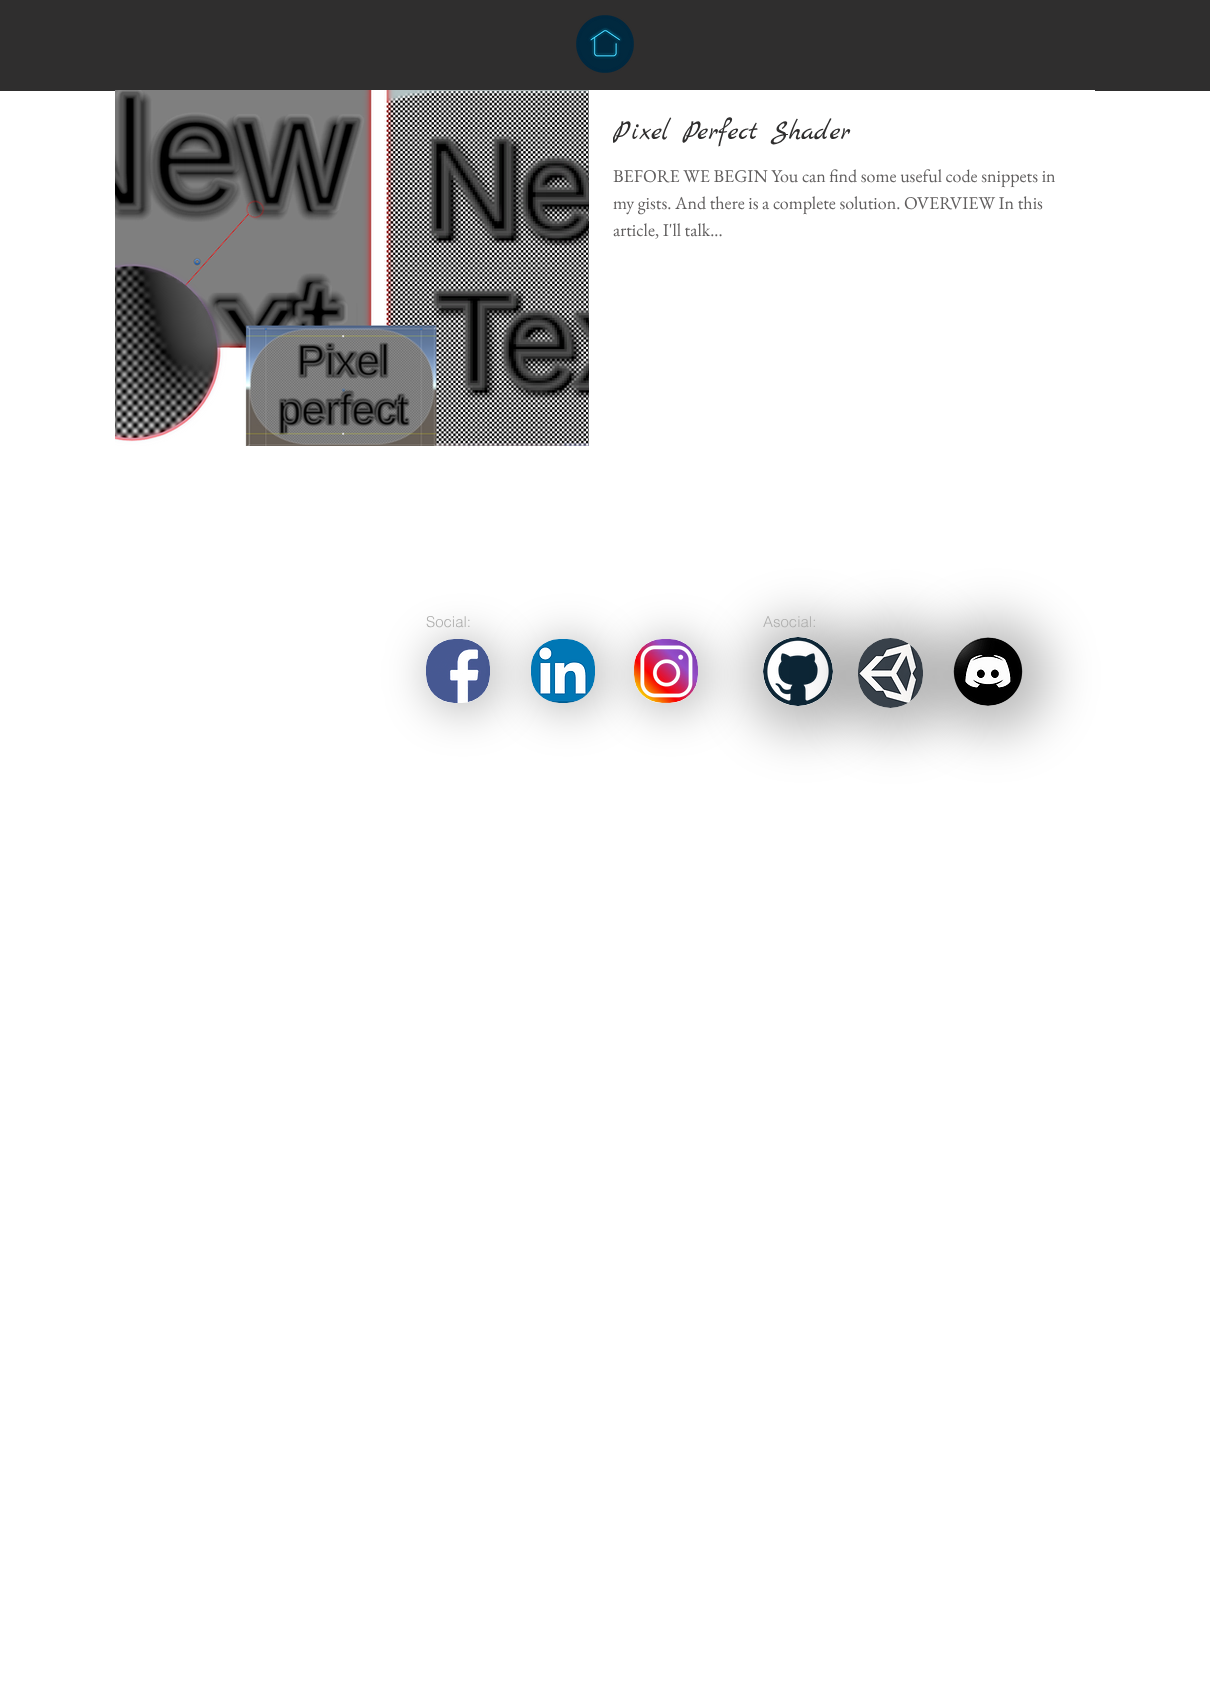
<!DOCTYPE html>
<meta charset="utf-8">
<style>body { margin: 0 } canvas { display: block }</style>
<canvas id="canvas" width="1210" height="1695"></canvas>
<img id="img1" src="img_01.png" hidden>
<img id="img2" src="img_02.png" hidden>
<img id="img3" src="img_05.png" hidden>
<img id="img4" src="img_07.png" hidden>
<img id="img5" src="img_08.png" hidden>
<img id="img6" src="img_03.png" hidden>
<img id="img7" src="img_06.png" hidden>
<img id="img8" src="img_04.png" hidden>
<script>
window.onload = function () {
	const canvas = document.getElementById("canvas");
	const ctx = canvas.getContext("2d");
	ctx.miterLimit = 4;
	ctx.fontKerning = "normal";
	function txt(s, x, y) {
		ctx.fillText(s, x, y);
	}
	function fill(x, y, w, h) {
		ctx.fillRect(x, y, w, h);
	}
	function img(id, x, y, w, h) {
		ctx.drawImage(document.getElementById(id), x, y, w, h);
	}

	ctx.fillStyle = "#FFFFFF";
	fill(0, 0, 1210, 1695);
	ctx.fillStyle = "#2F2E2E";
	fill(0, 0, 1210, 91);
	img("img1", 576, 15, 58, 58);
	ctx.fillStyle = "#FFFFFF";
	fill(115, 90, 980, 1);
	img("img2", 115, 90, 474, 356);
	ctx.save();
	ctx.beginPath();
	ctx.moveTo(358, 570);
	ctx.lineTo(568, 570);
	ctx.lineTo(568, 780);
	ctx.lineTo(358, 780);
	ctx.closePath();
	ctx.moveTo(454, 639);
	ctx.lineTo(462, 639);
	ctx.bezierCurveTo(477.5, 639, 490, 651.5, 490, 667);
	ctx.lineTo(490, 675);
	ctx.bezierCurveTo(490, 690.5, 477.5, 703, 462, 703);
	ctx.lineTo(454, 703);
	ctx.bezierCurveTo(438.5, 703, 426, 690.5, 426, 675);
	ctx.lineTo(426, 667);
	ctx.bezierCurveTo(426, 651.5, 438.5, 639, 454, 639);
	ctx.closePath();
	ctx.clip("evenodd");
	ctx.fillStyle = "rgba(0, 0, 0, 0.27)";
	ctx.filter = "blur(22.5px)";
	ctx.beginPath();
	ctx.roundRect(427, 639, 72, 72, 32);
	ctx.fill();
	ctx.filter = "none";
	ctx.restore();
	img("img3", 426, 639, 64, 64);
	ctx.fillStyle = "rgba(0, 0, 0, 0.27)";
	ctx.filter = "blur(22.5px)";
	ctx.beginPath();
	ctx.roundRect(532, 639, 72, 72, 32);
	ctx.fill();
	ctx.filter = "none";
	img("img4", 531, 639, 64, 64);
	ctx.save();
	ctx.beginPath();
	ctx.moveTo(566, 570);
	ctx.lineTo(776, 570);
	ctx.lineTo(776, 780);
	ctx.lineTo(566, 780);
	ctx.closePath();
	ctx.moveTo(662, 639);
	ctx.lineTo(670, 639);
	ctx.bezierCurveTo(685.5, 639, 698, 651.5, 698, 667);
	ctx.lineTo(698, 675);
	ctx.bezierCurveTo(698, 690.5, 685.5, 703, 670, 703);
	ctx.lineTo(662, 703);
	ctx.bezierCurveTo(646.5, 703, 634, 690.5, 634, 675);
	ctx.lineTo(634, 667);
	ctx.bezierCurveTo(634, 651.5, 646.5, 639, 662, 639);
	ctx.closePath();
	ctx.clip("evenodd");
	ctx.filter = "blur(22.5px)";
	ctx.beginPath();
	ctx.roundRect(635, 639, 72, 72, 32);
	ctx.fill();
	ctx.filter = "none";
	ctx.restore();
	img("img5", 634, 639, 64, 64);
	ctx.save();
	ctx.beginPath();
	ctx.moveTo(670, 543);
	ctx.lineTo(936, 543);
	ctx.lineTo(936, 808);
	ctx.lineTo(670, 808);
	ctx.closePath();
	ctx.moveTo(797.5, 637);
	ctx.lineTo(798.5, 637);
	ctx.bezierCurveTo(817.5, 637, 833, 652.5, 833, 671.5);
	ctx.bezierCurveTo(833, 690.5, 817.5, 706, 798.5, 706);
	ctx.lineTo(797.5, 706);
	ctx.bezierCurveTo(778.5, 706, 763, 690.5, 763, 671.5);
	ctx.bezierCurveTo(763, 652.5, 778.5, 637, 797.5, 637);
	ctx.closePath();
	ctx.clip("evenodd");
	ctx.filter = "blur(25px)";
	ctx.beginPath();
	ctx.roundRect(746, 619, 114, 113, 56.5);
	ctx.fill();
	ctx.filter = "none";
	ctx.restore();
	img("img6", 763, 637, 70, 69);
	ctx.filter = "blur(25px)";
	ctx.beginPath();
	ctx.roundRect(841, 620, 109, 114, 54.5);
	ctx.fill();
	ctx.filter = "none";
	img("img7", 858, 638, 65, 70);
	ctx.filter = "blur(25px)";
	ctx.beginPath();
	ctx.roundRect(936, 619, 114, 113, 56.5);
	ctx.fill();
	ctx.filter = "none";
	img("img8", 953, 637, 70, 69);
	ctx.save();
	ctx.beginPath();
	ctx.rect(613, 115, 458, 35);
	ctx.clip();
	ctx.font = "28px Marck Script";
	ctx.fillStyle = "#2F2E2E";
	txt("Pixel Perfect Shader", 613, 139);
	ctx.restore();
	ctx.font = "18px EB Garamond";
	ctx.fillStyle = "#605E5E";
	txt("BEFORE WE BEGIN You can find some useful code snippets in", 613, 182);
	txt("my gists. And there is a complete solution. OVERVIEW In this", 613, 209);
	txt("article, I'll talk...", 613, 236);
	ctx.font = "300 15px helvetica";
	ctx.fillStyle = "#ADADAC";
	txt("Social:", 426, 627);
	txt("Asocial:", 763, 627);
};
</script>
